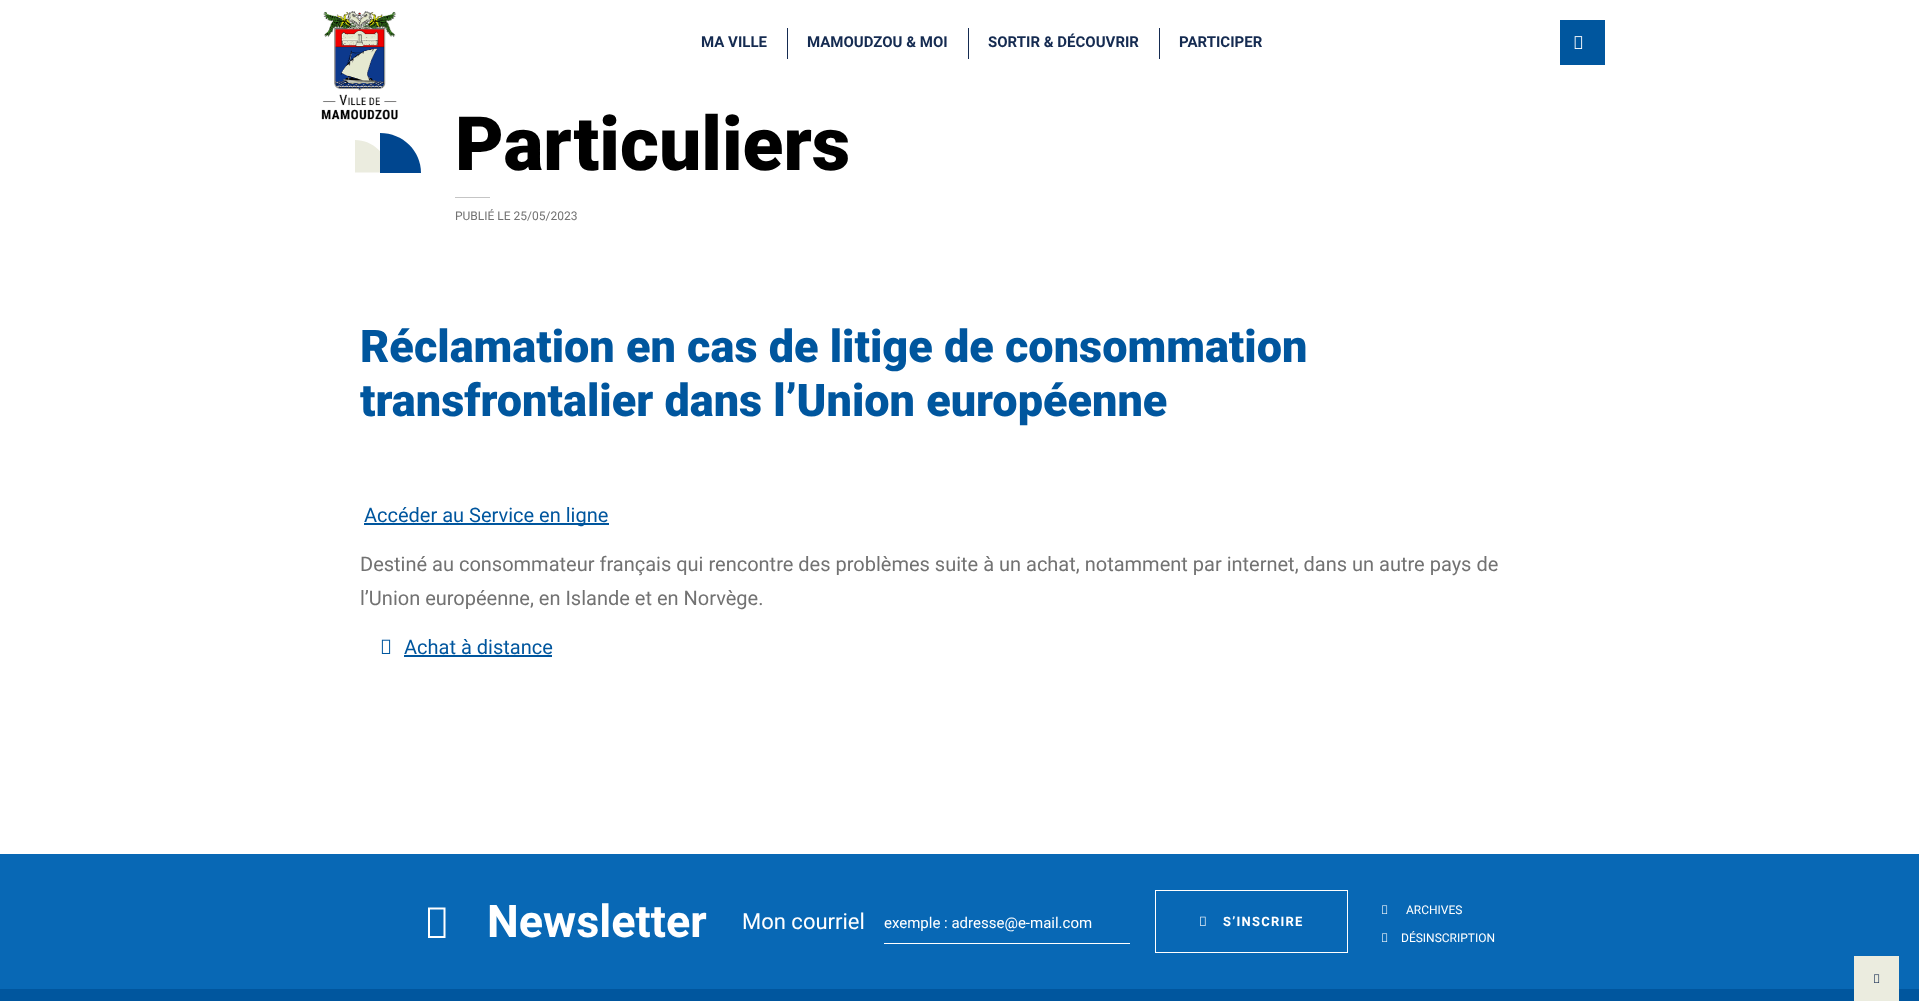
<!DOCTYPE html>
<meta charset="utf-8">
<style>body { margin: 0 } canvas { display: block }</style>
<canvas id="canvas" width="1919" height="1001"></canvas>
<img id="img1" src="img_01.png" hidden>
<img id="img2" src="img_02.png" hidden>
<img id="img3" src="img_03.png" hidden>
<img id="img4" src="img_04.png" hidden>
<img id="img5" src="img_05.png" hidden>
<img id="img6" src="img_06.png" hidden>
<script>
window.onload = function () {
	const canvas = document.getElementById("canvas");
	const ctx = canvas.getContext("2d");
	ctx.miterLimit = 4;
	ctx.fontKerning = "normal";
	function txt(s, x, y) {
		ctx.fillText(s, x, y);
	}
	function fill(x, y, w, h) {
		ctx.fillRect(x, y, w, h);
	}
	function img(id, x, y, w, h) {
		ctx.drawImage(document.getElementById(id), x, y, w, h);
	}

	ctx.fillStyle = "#FFFFFF";
	fill(0, 0, 1919, 1001);
	img("img1", 321, 11, 77, 109);
	ctx.fillStyle = "#152B51";
	fill(787, 28, 1, 31);
	fill(968, 28, 1, 31);
	fill(1159, 28, 1, 31);
	ctx.fillStyle = "#00569E";
	fill(1560, 20, 45, 45);
	img("img2", 1574, 36, 9, 13);
	ctx.fillStyle = "#EBECDF";
	ctx.beginPath();
	ctx.moveTo(355, 140);
	ctx.lineTo(355, 172.5);
	ctx.lineTo(388.5, 172.5);
	ctx.bezierCurveTo(388, 154.5, 373, 140, 355, 140);
	ctx.fill();
	ctx.fillStyle = "#00468F";
	ctx.beginPath();
	ctx.moveTo(380, 133);
	ctx.lineTo(380, 173);
	ctx.lineTo(421, 173);
	ctx.bezierCurveTo(421, 151, 403, 133, 380, 133);
	ctx.fill();
	ctx.fillStyle = "#C5C5C5";
	fill(455, 197, 35, 1);
	ctx.fillStyle = "#00569E";
	fill(364, 523, 245, 2);
	img("img3", 381, 639, 10, 15);
	fill(404, 655, 148, 2);
	ctx.fillStyle = "#0868B5";
	fill(0, 854, 1919, 135);
	ctx.fillStyle = "#FFFFFF";
	ctx.beginPath();
	ctx.moveTo(428, 938);
	ctx.lineTo(428, 907.5);
	ctx.lineTo(445.5, 907.5);
	ctx.lineTo(445.5, 938);
	ctx.closePath();
	ctx.moveTo(430, 936);
	ctx.lineTo(443.5, 936);
	ctx.lineTo(443.5, 909.5);
	ctx.lineTo(430, 909.5);
	ctx.closePath();
	ctx.fill();
	fill(884, 943, 246, 1);
	ctx.strokeStyle = "#FFFFFF";
	ctx.strokeRect(1155.5, 890.5, 192, 62);
	img("img4", 1200, 916, 6, 10);
	img("img5", 1382, 905, 6, 9);
	img("img5", 1382, 933, 6, 9);
	ctx.fillStyle = "#00569E";
	fill(0, 989, 1919, 12);
	ctx.fillStyle = "#EBECDF";
	fill(1854, 956, 45, 45);
	img("img6", 1874, 974, 6, 9);
	ctx.font = "bold 15px Roboto";
	ctx.fillStyle = "#152B51";
	txt("MA VILLE", 701, 47);
	txt("MAMOUDZOU & MOI", 807, 47);
	txt("SORTIR & DÉCOUVRIR", 988, 47);
	txt("PARTICIPER", 1179, 47);
	ctx.font = "900 75px Roboto";
	ctx.fillStyle = "#000000";
	txt("Particuliers", 455, 170);
	ctx.font = "12px Roboto";
	ctx.fillStyle = "#727272";
	txt("PUBLIÉ LE 25/05/2023", 455, 220);
	ctx.font = "900 45px Roboto";
	ctx.fillStyle = "#00569E";
	txt("Réclamation en cas de litige de consommation", 360, 362);
	ctx.save();
	ctx.beginPath();
	ctx.rect(360, 320, 1200, 108);
	ctx.clip();
	txt("transfrontalier dans l’Union européenne", 360, 416);
	ctx.restore();
	ctx.font = "20px Roboto";
	txt("Accéder au Service en ligne", 364, 522);
	ctx.fillStyle = "#727272";
	txt("Destiné au consommateur français qui rencontre des problèmes suite à un achat, notamment par internet, dans un autre pays de", 360, 571);
	txt("l’Union européenne, en Islande et en Norvège.", 360, 605);
	ctx.fillStyle = "#00569E";
	txt("Achat à distance", 404, 654);
	ctx.font = "bold 45px Roboto";
	ctx.fillStyle = "#FFFFFF";
	txt("Newsletter", 487, 937);
	ctx.font = "22px Roboto";
	txt("Mon courriel", 742, 929);
	ctx.font = "15px Roboto";
	txt("exemple : adresse@e-mail.com", 884, 928);
	ctx.letterSpacing = "1.25px";
	ctx.font = "bold 13px Roboto";
	txt("S’INSCRIRE", 1223, 926);
	ctx.letterSpacing = "0px";
	ctx.font = "12px Roboto";
	txt("ARCHIVES", 1406, 914);
	txt("DÉSINSCRIPTION", 1401, 942);
};
</script>
